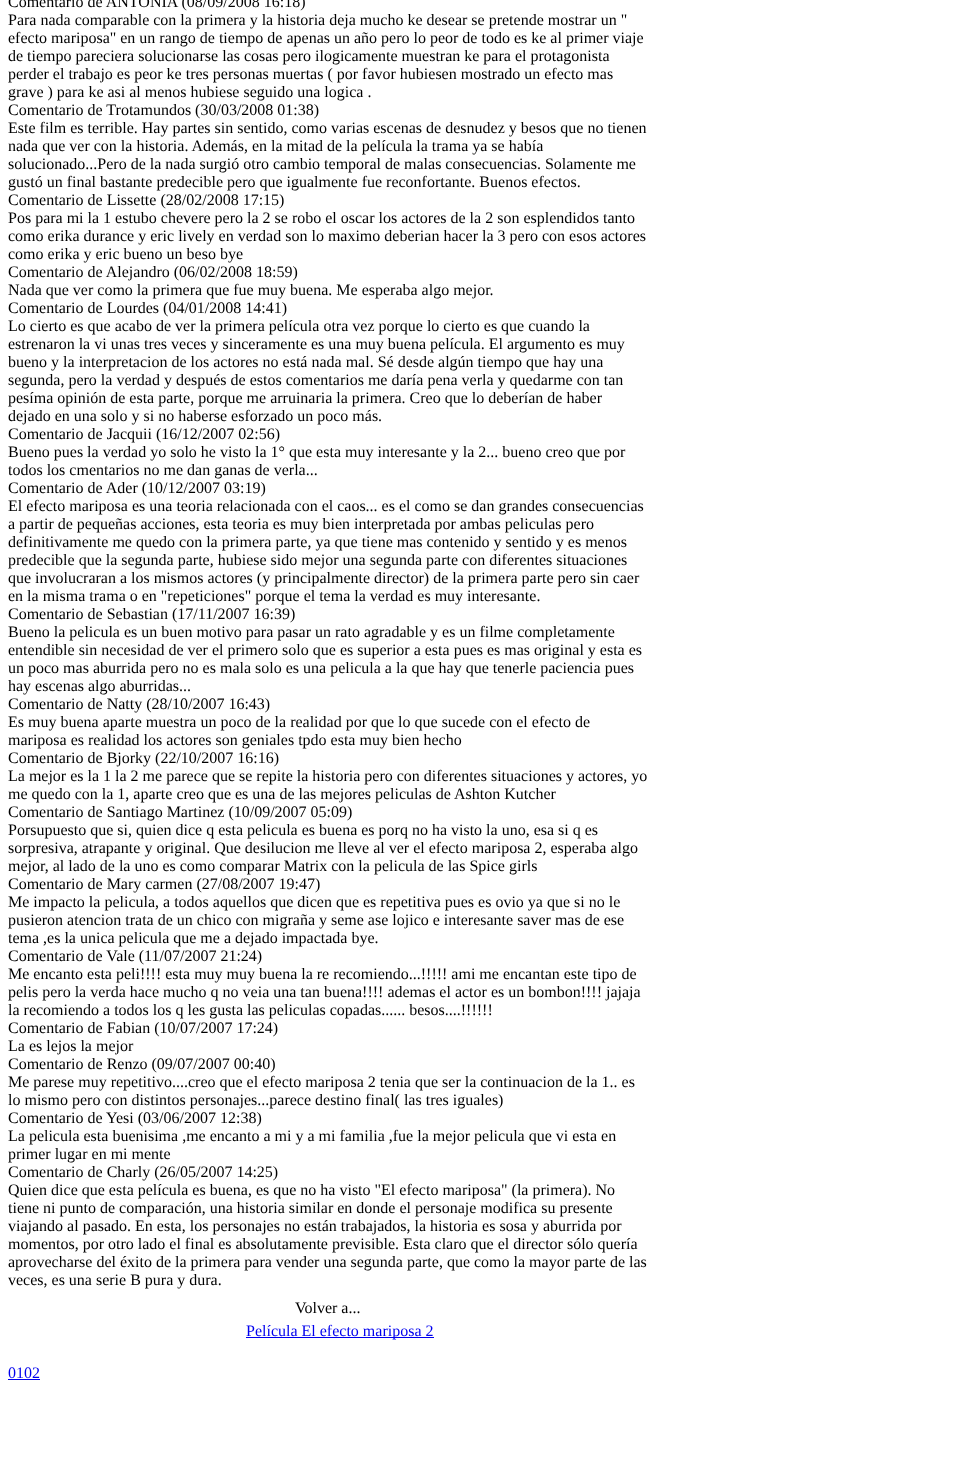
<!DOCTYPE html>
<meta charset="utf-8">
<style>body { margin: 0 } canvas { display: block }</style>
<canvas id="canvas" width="980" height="1476"></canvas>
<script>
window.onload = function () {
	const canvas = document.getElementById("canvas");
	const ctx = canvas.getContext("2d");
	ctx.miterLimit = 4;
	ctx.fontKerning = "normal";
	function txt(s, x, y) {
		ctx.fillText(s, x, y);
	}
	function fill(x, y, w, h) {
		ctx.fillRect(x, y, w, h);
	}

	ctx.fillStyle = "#FFFFFF";
	fill(0, 0, 980, 1476);
	ctx.fillStyle = "#0000EE";
	fill(246, 1337, 188, 1);
	fill(8, 1379, 32, 1);
	ctx.font = "16px Liberation Serif";
	ctx.fillStyle = "#000000";
	txt("Comentario de ANTONIA (08/09/2008 16:18)", 8, 7);
	txt("Para nada comparable con la primera y la historia deja mucho ke desear se pretende mostrar un \"", 8, 25);
	txt("efecto mariposa\" en un rango de tiempo de apenas un año pero lo peor de todo es ke al primer viaje", 8, 43);
	txt("de tiempo pareciera solucionarse las cosas pero ilogicamente muestran ke para el protagonista", 8, 61);
	txt("perder el trabajo es peor ke tres personas muertas ( por favor hubiesen mostrado un efecto mas", 8, 79);
	txt("grave ) para ke asi al menos hubiese seguido una logica .", 8, 97);
	txt("Comentario de Trotamundos (30/03/2008 01:38)", 8, 115);
	txt("Este film es terrible. Hay partes sin sentido, como varias escenas de desnudez y besos que no tienen", 8, 133);
	txt("nada que ver con la historia. Además, en la mitad de la película la trama ya se había", 8, 151);
	txt("solucionado...Pero de la nada surgió otro cambio temporal de malas consecuencias. Solamente me", 8, 169);
	txt("gustó un final bastante predecible pero que igualmente fue reconfortante. Buenos efectos.", 8, 187);
	txt("Comentario de Lissette (28/02/2008 17:15)", 8, 205);
	txt("Pos para mi la 1 estubo chevere pero la 2 se robo el oscar los actores de la 2 son esplendidos tanto", 8, 223);
	txt("como erika durance y eric lively en verdad son lo maximo deberian hacer la 3 pero con esos actores", 8, 241);
	txt("como erika y eric bueno un beso bye", 8, 259);
	txt("Comentario de Alejandro (06/02/2008 18:59)", 8, 277);
	txt("Nada que ver como la primera que fue muy buena. Me esperaba algo mejor.", 8, 295);
	txt("Comentario de Lourdes (04/01/2008 14:41)", 8, 313);
	txt("Lo cierto es que acabo de ver la primera película otra vez porque lo cierto es que cuando la", 8, 331);
	txt("estrenaron la vi unas tres veces y sinceramente es una muy buena película. El argumento es muy", 8, 349);
	txt("bueno y la interpretacion de los actores no está nada mal. Sé desde algún tiempo que hay una", 8, 367);
	txt("segunda, pero la verdad y después de estos comentarios me daría pena verla y quedarme con tan", 8, 385);
	txt("pesíma opinión de esta parte, porque me arruinaria la primera. Creo que lo deberían de haber", 8, 403);
	txt("dejado en una solo y si no haberse esforzado un poco más.", 8, 421);
	txt("Comentario de Jacquii (16/12/2007 02:56)", 8, 439);
	txt("Bueno pues la verdad yo solo he visto la 1° que esta muy interesante y la 2... bueno creo que por", 8, 457);
	txt("todos los cmentarios no me dan ganas de verla...", 8, 475);
	txt("Comentario de Ader (10/12/2007 03:19)", 8, 493);
	txt("El efecto mariposa es una teoria relacionada con el caos... es el como se dan grandes consecuencias", 8, 511);
	txt("a partir de pequeñas acciones, esta teoria es muy bien interpretada por ambas peliculas pero", 8, 529);
	txt("definitivamente me quedo con la primera parte, ya que tiene mas contenido y sentido y es menos", 8, 547);
	txt("predecible que la segunda parte, hubiese sido mejor una segunda parte con diferentes situaciones", 8, 565);
	txt("que involucraran a los mismos actores (y principalmente director) de la primera parte pero sin caer", 8, 583);
	txt("en la misma trama o en \"repeticiones\" porque el tema la verdad es muy interesante.", 8, 601);
	txt("Comentario de Sebastian (17/11/2007 16:39)", 8, 619);
	txt("Bueno la pelicula es un buen motivo para pasar un rato agradable y es un filme completamente", 8, 637);
	txt("entendible sin necesidad de ver el primero solo que es superior a esta pues es mas original y esta es", 8, 655);
	txt("un poco mas aburrida pero no es mala solo es una pelicula a la que hay que tenerle paciencia pues", 8, 673);
	txt("hay escenas algo aburridas...", 8, 691);
	txt("Comentario de Natty (28/10/2007 16:43)", 8, 709);
	txt("Es muy buena aparte muestra un poco de la realidad por que lo que sucede con el efecto de", 8, 727);
	txt("mariposa es realidad los actores son geniales tpdo esta muy bien hecho", 8, 745);
	txt("Comentario de Bjorky (22/10/2007 16:16)", 8, 763);
	txt("La mejor es la 1 la 2 me parece que se repite la historia pero con diferentes situaciones y actores, yo", 8, 781);
	txt("me quedo con la 1, aparte creo que es una de las mejores peliculas de Ashton Kutcher", 8, 799);
	txt("Comentario de Santiago Martinez (10/09/2007 05:09)", 8, 817);
	txt("Porsupuesto que si, quien dice q esta pelicula es buena es porq no ha visto la uno, esa si q es", 8, 835);
	txt("sorpresiva, atrapante y original. Que desilucion me lleve al ver el efecto mariposa 2, esperaba algo", 8, 853);
	txt("mejor, al lado de la uno es como comparar Matrix con la pelicula de las Spice girls", 8, 871);
	txt("Comentario de Mary carmen (27/08/2007 19:47)", 8, 889);
	txt("Me impacto la pelicula, a todos aquellos que dicen que es repetitiva pues es ovio ya que si no le", 8, 907);
	txt("pusieron atencion trata de un chico con migraña y seme ase lojico e interesante saver mas de ese", 8, 925);
	txt("tema ,es la unica pelicula que me a dejado impactada bye.", 8, 943);
	txt("Comentario de Vale (11/07/2007 21:24)", 8, 961);
	txt("Me encanto esta peli!!!! esta muy muy buena la re recomiendo...!!!!! ami me encantan este tipo de", 8, 979);
	txt("pelis pero la verda hace mucho q no veia una tan buena!!!! ademas el actor es un bombon!!!! jajaja", 8, 997);
	txt("la recomiendo a todos los q les gusta las peliculas copadas...... besos....!!!!!!", 8, 1015);
	txt("Comentario de Fabian (10/07/2007 17:24)", 8, 1033);
	txt("La es lejos la mejor", 8, 1051);
	txt("Comentario de Renzo (09/07/2007 00:40)", 8, 1069);
	txt("Me parese muy repetitivo....creo que el efecto mariposa 2 tenia que ser la continuacion de la 1.. es", 8, 1087);
	txt("lo mismo pero con distintos personajes...parece destino final( las tres iguales)", 8, 1105);
	txt("Comentario de Yesi (03/06/2007 12:38)", 8, 1123);
	txt("La pelicula esta buenisima ,me encanto a mi y a mi familia ,fue la mejor pelicula que vi esta en", 8, 1141);
	txt("primer lugar en mi mente", 8, 1159);
	txt("Comentario de Charly (26/05/2007 14:25)", 8, 1177);
	txt("Quien dice que esta película es buena, es que no ha visto \"El efecto mariposa\" (la primera). No", 8, 1195);
	txt("tiene ni punto de comparación, una historia similar en donde el personaje modifica su presente", 8, 1213);
	txt("viajando al pasado. En esta, los personajes no están trabajados, la historia es sosa y aburrida por", 8, 1231);
	txt("momentos, por otro lado el final es absolutamente previsible. Esta claro que el director sólo quería", 8, 1249);
	txt("aprovecharse del éxito de la primera para vender una segunda parte, que como la mayor parte de las", 8, 1267);
	txt("veces, es una serie B pura y dura.", 8, 1285);
	txt("Volver a...", 295, 1313);
	ctx.fillStyle = "#0000EE";
	txt("Película El efecto mariposa 2", 246, 1336);
	txt("0102", 8, 1378);
};
</script>
